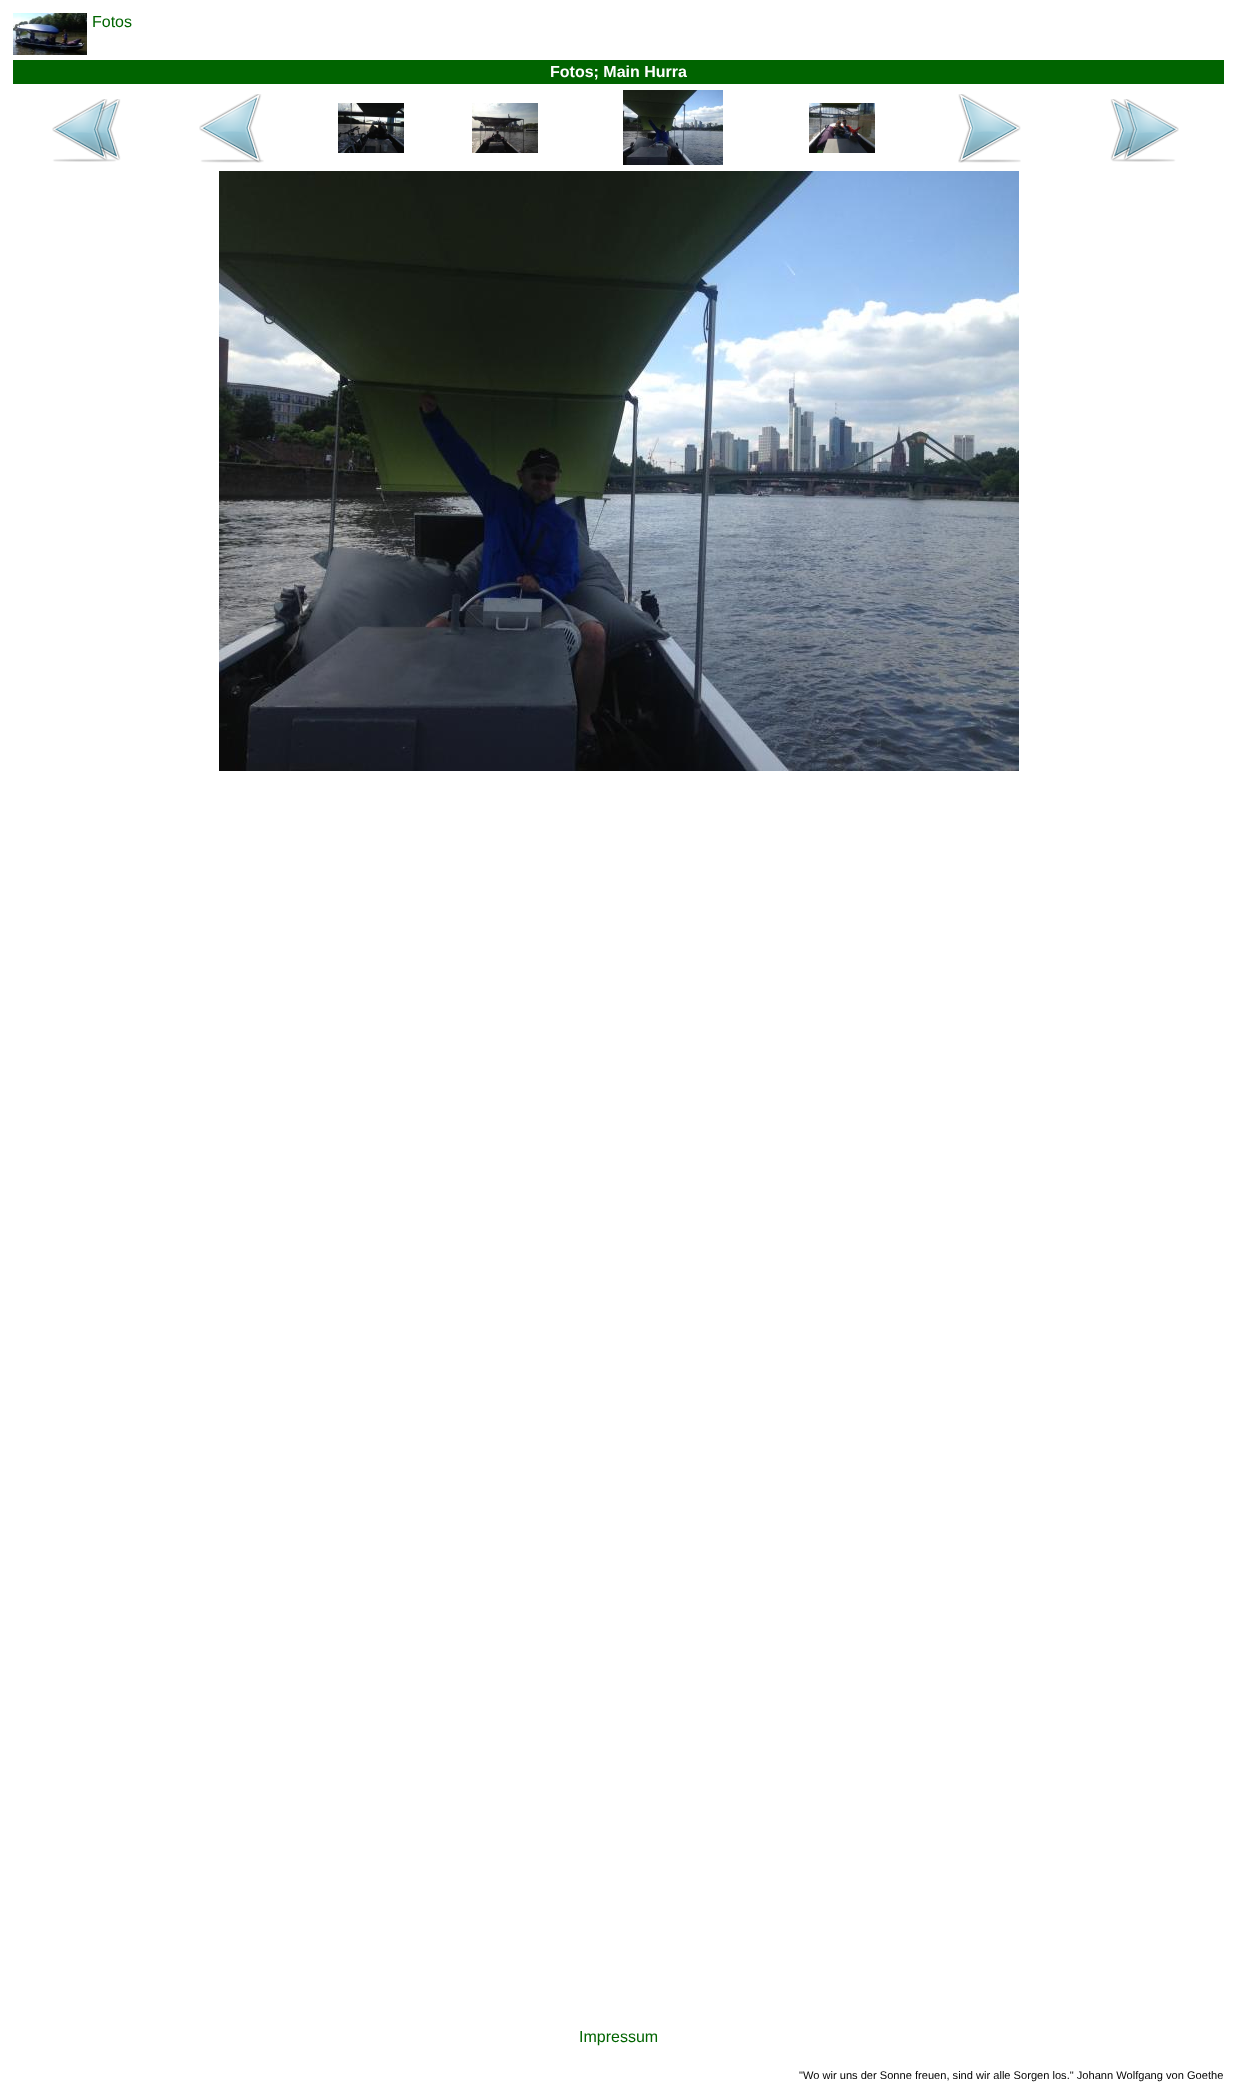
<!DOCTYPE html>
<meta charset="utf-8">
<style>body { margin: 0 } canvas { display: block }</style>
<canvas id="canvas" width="1237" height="2094"></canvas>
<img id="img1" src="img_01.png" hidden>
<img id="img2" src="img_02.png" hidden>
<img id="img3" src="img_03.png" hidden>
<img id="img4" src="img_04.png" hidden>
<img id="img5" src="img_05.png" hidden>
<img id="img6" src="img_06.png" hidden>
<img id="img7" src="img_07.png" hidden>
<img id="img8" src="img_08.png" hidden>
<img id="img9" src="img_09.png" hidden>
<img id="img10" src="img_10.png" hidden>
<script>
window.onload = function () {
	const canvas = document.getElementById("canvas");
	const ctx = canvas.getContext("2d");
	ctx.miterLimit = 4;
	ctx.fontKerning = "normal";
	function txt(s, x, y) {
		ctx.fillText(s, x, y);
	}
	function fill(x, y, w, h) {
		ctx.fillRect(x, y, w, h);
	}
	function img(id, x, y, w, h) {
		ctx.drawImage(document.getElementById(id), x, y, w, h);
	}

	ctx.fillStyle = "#FFFFFF";
	fill(0, 0, 1237, 2094);
	img("img1", 13, 13, 74, 42);
	ctx.fillStyle = "#006400";
	fill(13, 60, 1211, 24);
	img("img2", 52, 99, 69, 63);
	img("img3", 199, 94, 65, 69);
	img("img4", 338, 103, 66, 50);
	img("img5", 472, 103, 66, 50);
	img("img6", 623, 90, 100, 75);
	img("img7", 809, 103, 66, 50);
	img("img8", 958, 94, 63, 69);
	img("img9", 1110, 99, 69, 63);
	img("img10", 219, 171, 800, 600);
	ctx.font = "16px Liberation Sans";
	txt("Fotos", 92, 27);
	ctx.font = "bold 16px Liberation Sans";
	ctx.fillStyle = "#FFFFFF";
	txt("Fotos; Main Hurra", 550, 77);
	ctx.font = "16px Liberation Sans";
	ctx.fillStyle = "#006400";
	txt("Impressum", 579, 2042);
	ctx.font = "11.1px Liberation Sans";
	ctx.fillStyle = "#000000";
	txt("\"Wo wir uns der Sonne freuen, sind wir alle Sorgen los.\" Johann Wolfgang von Goethe", 799, 2079);
};
</script>
